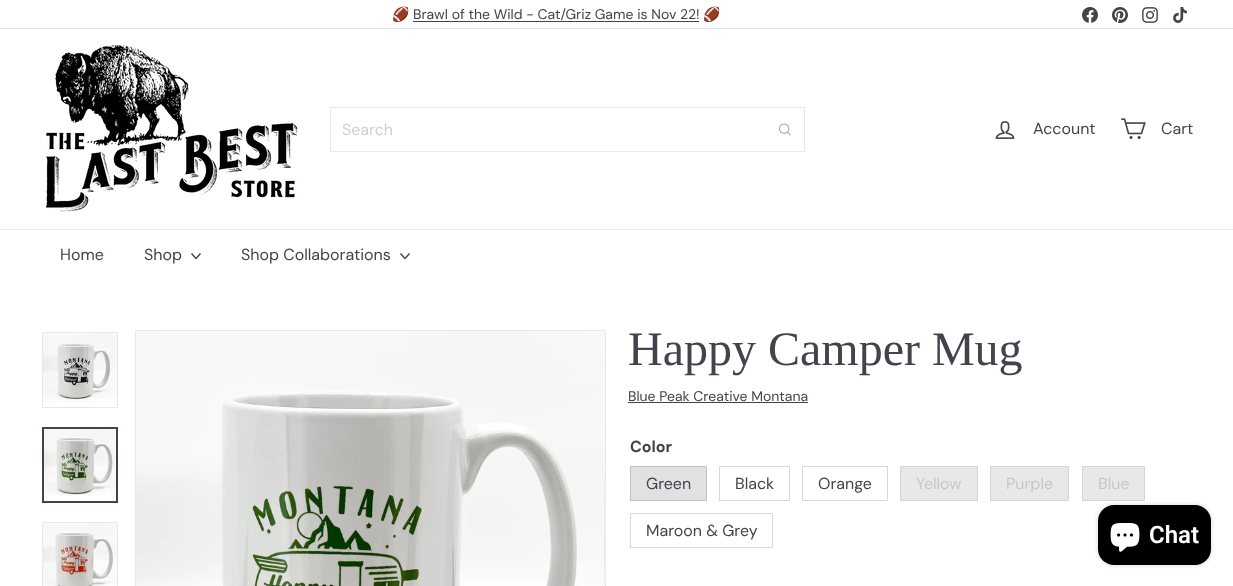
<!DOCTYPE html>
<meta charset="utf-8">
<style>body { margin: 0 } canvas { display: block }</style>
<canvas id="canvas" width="1233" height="586"></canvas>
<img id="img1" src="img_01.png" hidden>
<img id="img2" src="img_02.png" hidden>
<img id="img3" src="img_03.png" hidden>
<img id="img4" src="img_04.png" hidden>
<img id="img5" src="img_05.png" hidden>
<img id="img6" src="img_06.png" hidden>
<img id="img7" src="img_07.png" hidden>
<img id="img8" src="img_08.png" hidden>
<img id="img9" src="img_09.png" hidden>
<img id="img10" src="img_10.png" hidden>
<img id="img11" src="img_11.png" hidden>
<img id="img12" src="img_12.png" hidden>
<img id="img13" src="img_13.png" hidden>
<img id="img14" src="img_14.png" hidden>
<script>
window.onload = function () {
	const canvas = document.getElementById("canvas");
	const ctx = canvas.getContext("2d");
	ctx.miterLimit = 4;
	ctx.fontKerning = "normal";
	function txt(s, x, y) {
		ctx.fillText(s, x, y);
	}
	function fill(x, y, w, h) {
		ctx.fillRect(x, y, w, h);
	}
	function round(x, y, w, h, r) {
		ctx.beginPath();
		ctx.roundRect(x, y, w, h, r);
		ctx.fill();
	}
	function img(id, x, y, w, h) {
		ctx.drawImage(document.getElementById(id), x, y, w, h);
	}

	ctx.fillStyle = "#FFFFFF";
	fill(0, 0, 1233, 586);
	ctx.fillStyle = "#42434D";
	fill(413, 21, 286, 1);
	img("img1", 1082, 7, 16, 16);
	img("img2", 1112, 7, 16, 16);
	img("img3", 1142, 7, 16, 16);
	img("img4", 1173, 7, 14, 16);
	ctx.fillStyle = "#E3E3E4";
	fill(0, 28, 1233, 1);
	img("img5", 46, 45, 252, 167);
	ctx.strokeStyle = "#E8E8EA";
	ctx.strokeRect(330.5, 107.5, 474, 44);
	img("img6", 779, 123, 12, 13);
	img("img7", 995, 121, 20, 18);
	img("img8", 1121, 118, 25, 21);
	ctx.fillStyle = "#ECECED";
	fill(0, 229, 1233, 1);
	ctx.beginPath();
	ctx.moveTo(191.5, 253.5);
	ctx.lineTo(196, 258.5);
	ctx.lineTo(200.5, 253.5);
	ctx.strokeStyle = "#42434D";
	ctx.lineWidth = 1.4;
	ctx.stroke();
	ctx.beginPath();
	ctx.moveTo(400.5, 253.5);
	ctx.lineTo(405, 258.5);
	ctx.lineTo(409.5, 253.5);
	ctx.stroke();
	ctx.strokeStyle = "#E8E8EA";
	ctx.lineWidth = 1;
	ctx.strokeRect(42.5, 332.5, 75, 75);
	img("img9", 43, 333, 74, 69);
	img("img10", 44, 429, 72, 67);
	ctx.strokeStyle = "#42434D";
	ctx.lineWidth = 2;
	ctx.strokeRect(43, 428, 74, 74);
	ctx.strokeStyle = "#E8E8EA";
	ctx.lineWidth = 1;
	ctx.strokeRect(42.5, 522.5, 75, 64);
	img("img11", 43, 523, 74, 63);
	ctx.strokeRect(135.5, 330.5, 470, 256);
	img("img12", 136, 331, 469, 255);
	img("img13", 604, 365, 1, 221);
	ctx.fillStyle = "#42434D";
	fill(628, 402, 180, 1);
	ctx.fillStyle = "#E1E1E3";
	ctx.beginPath();
	ctx.rect(630.5, 466.5, 76, 34);
	ctx.fill();
	ctx.strokeStyle = "#C1C1C5";
	ctx.stroke();
	ctx.strokeStyle = "#D9D9DB";
	ctx.strokeRect(719.5, 466.5, 70, 34);
	ctx.strokeRect(802.5, 466.5, 85, 34);
	ctx.fillStyle = "#E8E8EA";
	ctx.beginPath();
	ctx.rect(900.5, 466.5, 77, 34);
	ctx.fill();
	ctx.strokeStyle = "#D4D4D7";
	ctx.stroke();
	ctx.beginPath();
	ctx.rect(990.5, 466.5, 78, 34);
	ctx.fill();
	ctx.stroke();
	ctx.beginPath();
	ctx.rect(1082.5, 466.5, 62, 34);
	ctx.fill();
	ctx.stroke();
	ctx.strokeStyle = "#D9D9DB";
	ctx.strokeRect(630.5, 513.5, 142, 34);
	ctx.fillStyle = "rgba(0, 0, 0, 0.15)";
	ctx.filter = "blur(2.5px)";
	ctx.beginPath();
	ctx.roundRect(1098, 505, 113, 60, 16);
	ctx.fill();
	ctx.filter = "none";
	ctx.fillStyle = "#000000";
	round(1098, 505, 113, 60, 16);
	img("img14", 1110, 523, 30, 29);
	ctx.font = "14px Noto Color Emoji";
	ctx.fillStyle = "#42434D";
	txt("🏈", 392, 19);
	ctx.font = "14px DM Sans";
	txt("Brawl of the Wild - Cat/Griz Game is Nov 22!", 413, 19);
	ctx.font = "14px Noto Color Emoji";
	txt("🏈", 703, 19);
	ctx.font = "16px DM Sans";
	ctx.fillStyle = "#D0D0D3";
	txt("Search", 342, 135);
	ctx.fillStyle = "#42434D";
	txt("Account", 1033, 134);
	txt("Cart", 1161, 134);
	txt("Home", 60, 260);
	txt("Shop", 144, 260);
	txt("Shop Collaborations", 241, 260);
	ctx.font = "48px Liberation Serif";
	txt("Happy Camper Mug", 628, 365);
	ctx.font = "14px DM Sans";
	txt("Blue Peak Creative Montana", 628, 401);
	ctx.font = "bold 16px DM Sans";
	txt("Color", 630, 452);
	ctx.font = "16px DM Sans";
	txt("Green", 646, 489);
	txt("Black", 735, 489);
	txt("Orange", 818, 489);
	ctx.fillStyle = "#C6C7CA";
	txt("Yellow", 916, 489);
	txt("Purple", 1006, 489);
	txt("Blue", 1098, 489);
	ctx.fillStyle = "#42434D";
	txt("Maroon & Grey", 646, 536);
	ctx.font = "600 24px Roboto";
	ctx.fillStyle = "#FFFFFF";
	txt("Chat", 1149, 543);
};
</script>
